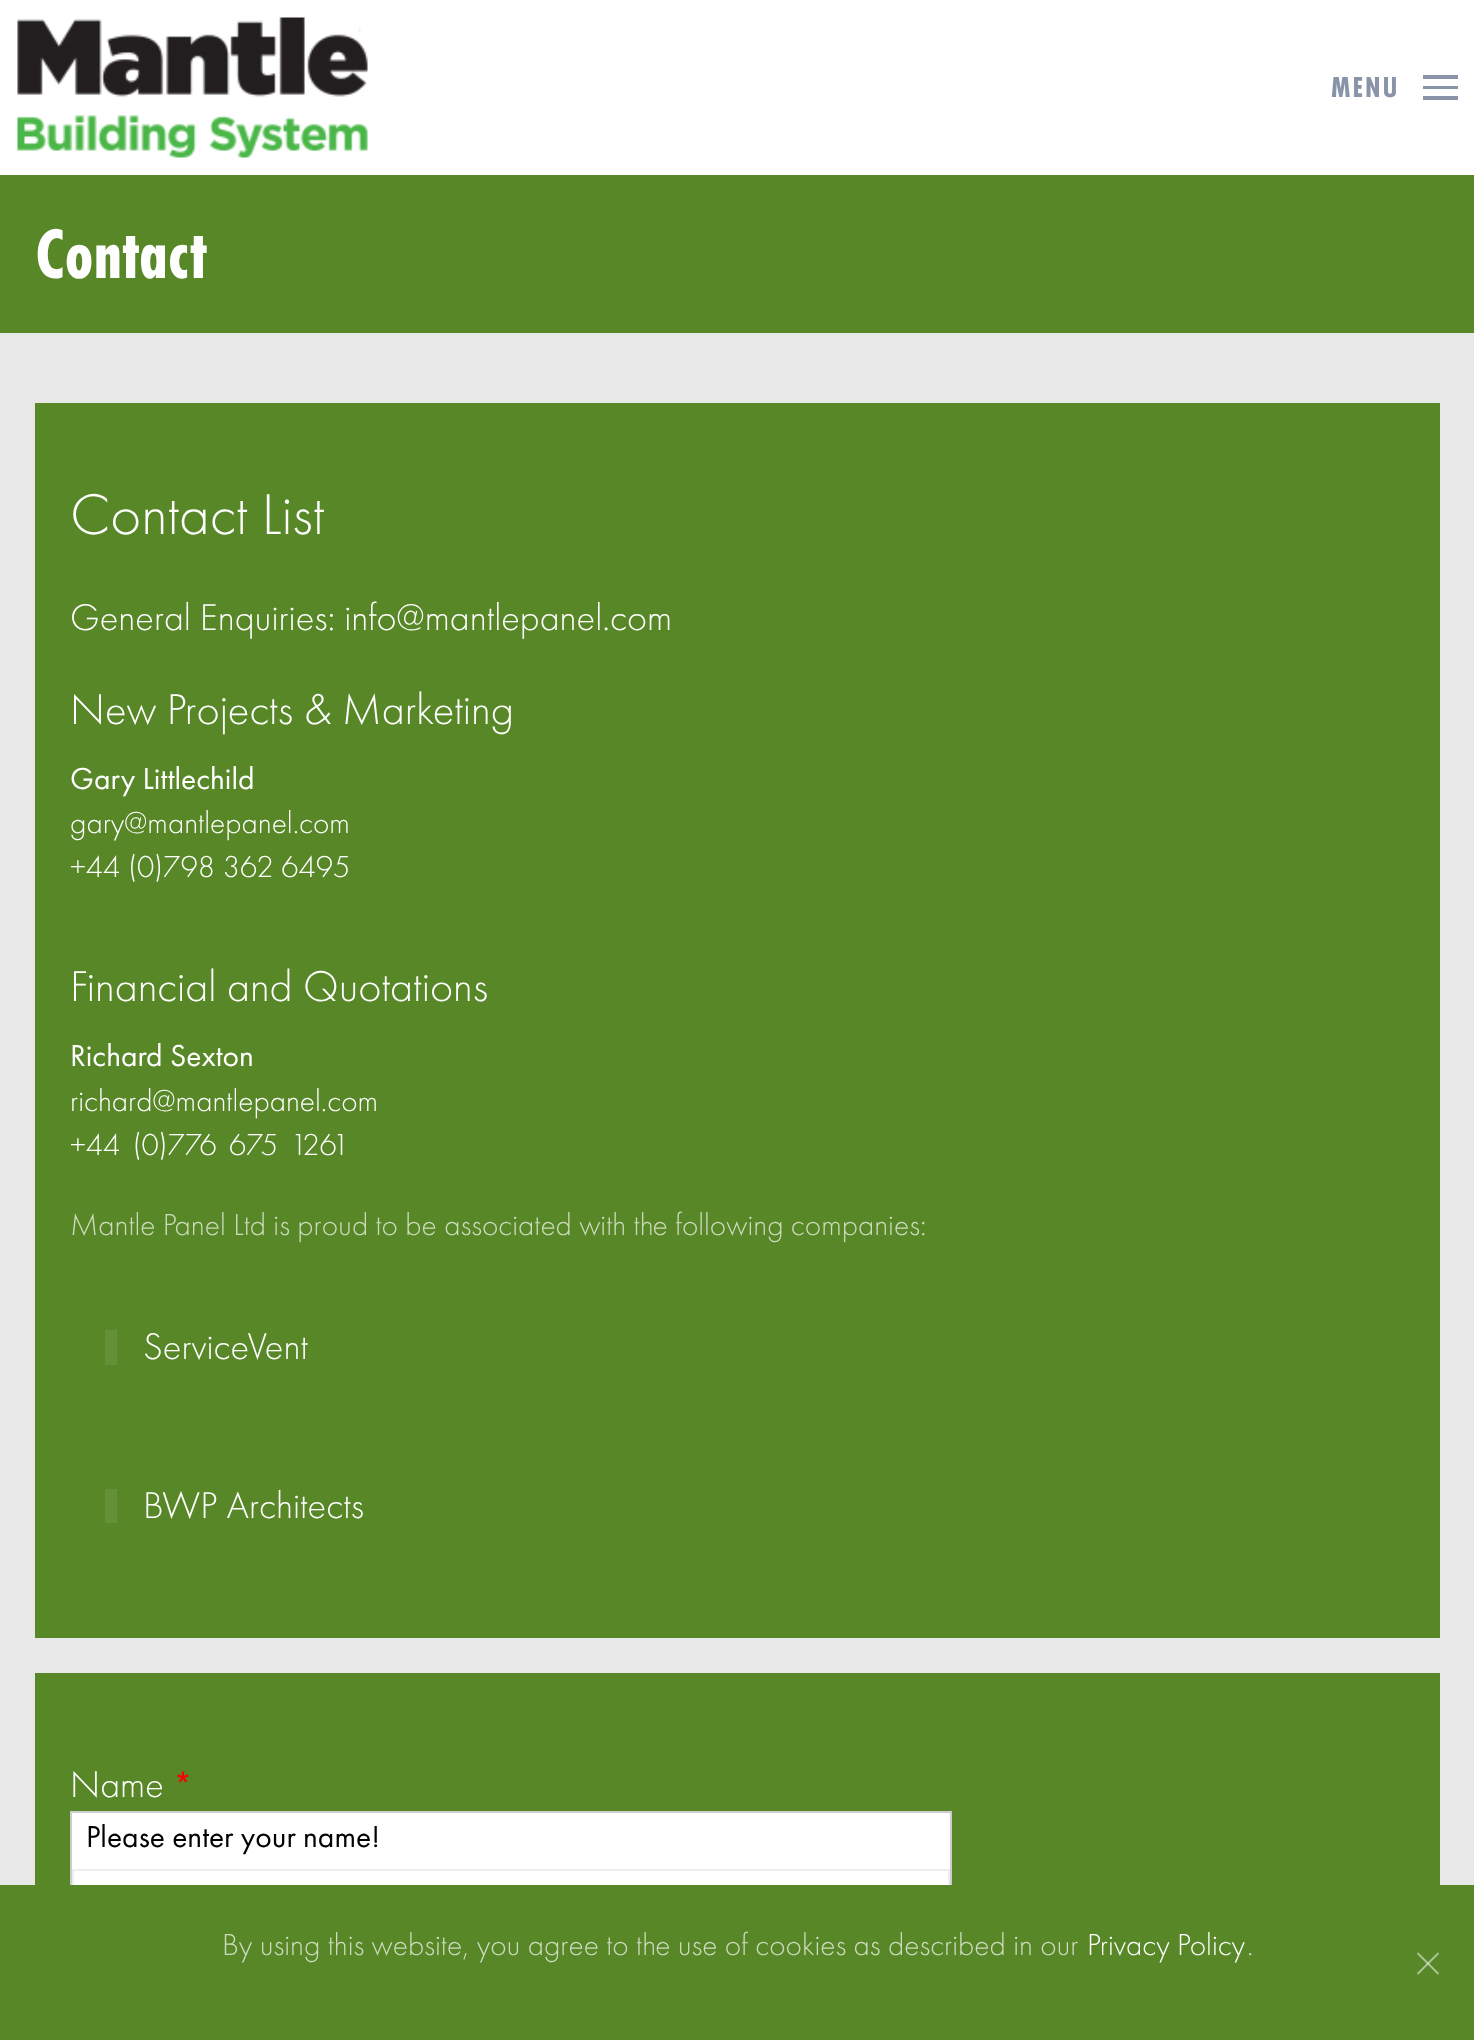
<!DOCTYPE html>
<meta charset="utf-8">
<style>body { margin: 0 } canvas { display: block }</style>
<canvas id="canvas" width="1474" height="2040"></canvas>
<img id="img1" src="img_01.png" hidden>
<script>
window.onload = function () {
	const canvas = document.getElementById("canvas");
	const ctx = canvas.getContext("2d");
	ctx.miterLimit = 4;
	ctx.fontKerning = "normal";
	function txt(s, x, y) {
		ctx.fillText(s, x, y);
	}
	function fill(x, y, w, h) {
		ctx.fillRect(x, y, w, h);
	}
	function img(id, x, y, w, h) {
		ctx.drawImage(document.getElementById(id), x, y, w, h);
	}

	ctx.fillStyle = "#FFFFFF";
	fill(0, 0, 1474, 2040);
	img("img1", 17, 17, 351, 141);
	ctx.fillStyle = "#8A94A8";
	fill(1423, 75, 35, 4);
	fill(1423, 86, 35, 3);
	fill(1423, 96, 35, 4);
	ctx.fillStyle = "#578726";
	fill(0, 175, 1474, 158);
	ctx.fillStyle = "#E8E8E8";
	fill(0, 333, 1474, 1552);
	ctx.fillStyle = "#578726";
	fill(35, 403, 1405, 1235);
	ctx.fillStyle = "#649137";
	fill(105, 1330, 12, 35);
	fill(105, 1489, 12, 34);
	ctx.fillStyle = "#578726";
	fill(35, 1673, 1405, 212);
	ctx.fillStyle = "#FFFFFF";
	fill(72, 1813, 878, 56);
	ctx.strokeStyle = "#CCCCCC";
	ctx.lineWidth = 2;
	ctx.strokeRect(71, 1812, 880, 103);
	fill(74, 1871, 874, 14);
	ctx.strokeStyle = "#EEEEEE";
	ctx.strokeRect(73, 1870, 876, 44);
	ctx.fillStyle = "#578726";
	fill(0, 1885, 1474, 155);
	ctx.beginPath();
	ctx.moveTo(1417.5, 1953);
	ctx.lineTo(1438.5, 1974);
	ctx.strokeStyle = "#ABC393";
	ctx.lineWidth = 1.9;
	ctx.stroke();
	ctx.beginPath();
	ctx.moveTo(1438.5, 1953);
	ctx.lineTo(1417.5, 1974);
	ctx.strokeStyle = "rgba(255, 255, 255, 0.5)";
	ctx.stroke();
	ctx.letterSpacing = "2px";
	ctx.font = "bold 30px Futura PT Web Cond";
	ctx.fillStyle = "#8A94A8";
	txt("MENU", 1331, 97);
	ctx.letterSpacing = "0px";
	ctx.font = "bold 73px Futura PT Web Cond";
	ctx.fillStyle = "#FFFFFF";
	txt("Contact", 35, 278);
	ctx.font = "300 59.5px Futura PT";
	txt("Contact List", 70, 534);
	ctx.font = "300 38.5px Futura PT";
	txt("General Enquiries: info@mantlepanel.com", 70, 630);
	ctx.font = "300 44.6px Futura PT";
	txt("New Projects & Marketing", 70, 724);
	ctx.font = "31.5px Futura PT";
	txt("Gary Littlechild", 70, 789);
	ctx.font = "300 31.5px Futura PT";
	txt("gary@mantlepanel.com", 70, 833);
	ctx.wordSpacing = "0.5px";
	txt("+44 (0)798 362 6495", 70, 877);
	ctx.wordSpacing = "0px";
	ctx.font = "300 44.6px Futura PT";
	txt("Financial and Quotations", 70, 1001);
	ctx.font = "31.5px Futura PT";
	txt("Richard Sexton", 70, 1066);
	ctx.font = "300 31.5px Futura PT";
	txt("richard@mantlepanel.com", 70, 1111);
	ctx.wordSpacing = "5px";
	txt("+44 (0)776 675 1261", 70, 1155);
	ctx.wordSpacing = "0px";
	ctx.fillStyle = "#CDDBBE";
	txt("Mantle Panel Ltd is proud to be associated with the following companies:", 70, 1235);
	ctx.font = "300 38.5px Futura PT";
	ctx.fillStyle = "#FFFFFF";
	txt("ServiceVent", 143, 1359);
	txt("BWP Architects", 143, 1518);
	txt("Name", 70, 1797);
	ctx.font = "35px Futura PT";
	ctx.fillStyle = "#FF0000";
	txt("*", 173, 1797);
	ctx.font = "31.5px Futura PT";
	ctx.fillStyle = "#000000";
	txt("Please enter your name!", 86, 1847);
	ctx.font = "300 31.5px Futura PT";
	ctx.fillStyle = "#CDDBBE";
	txt("By using this website, you agree to the use of cookies as described in our", 222, 1955);
	ctx.fillStyle = "#FFFFFF";
	txt("Privacy Policy", 1087, 1955);
	ctx.fillStyle = "#CDDBBE";
	txt(".", 1247, 1955);
};
</script>
